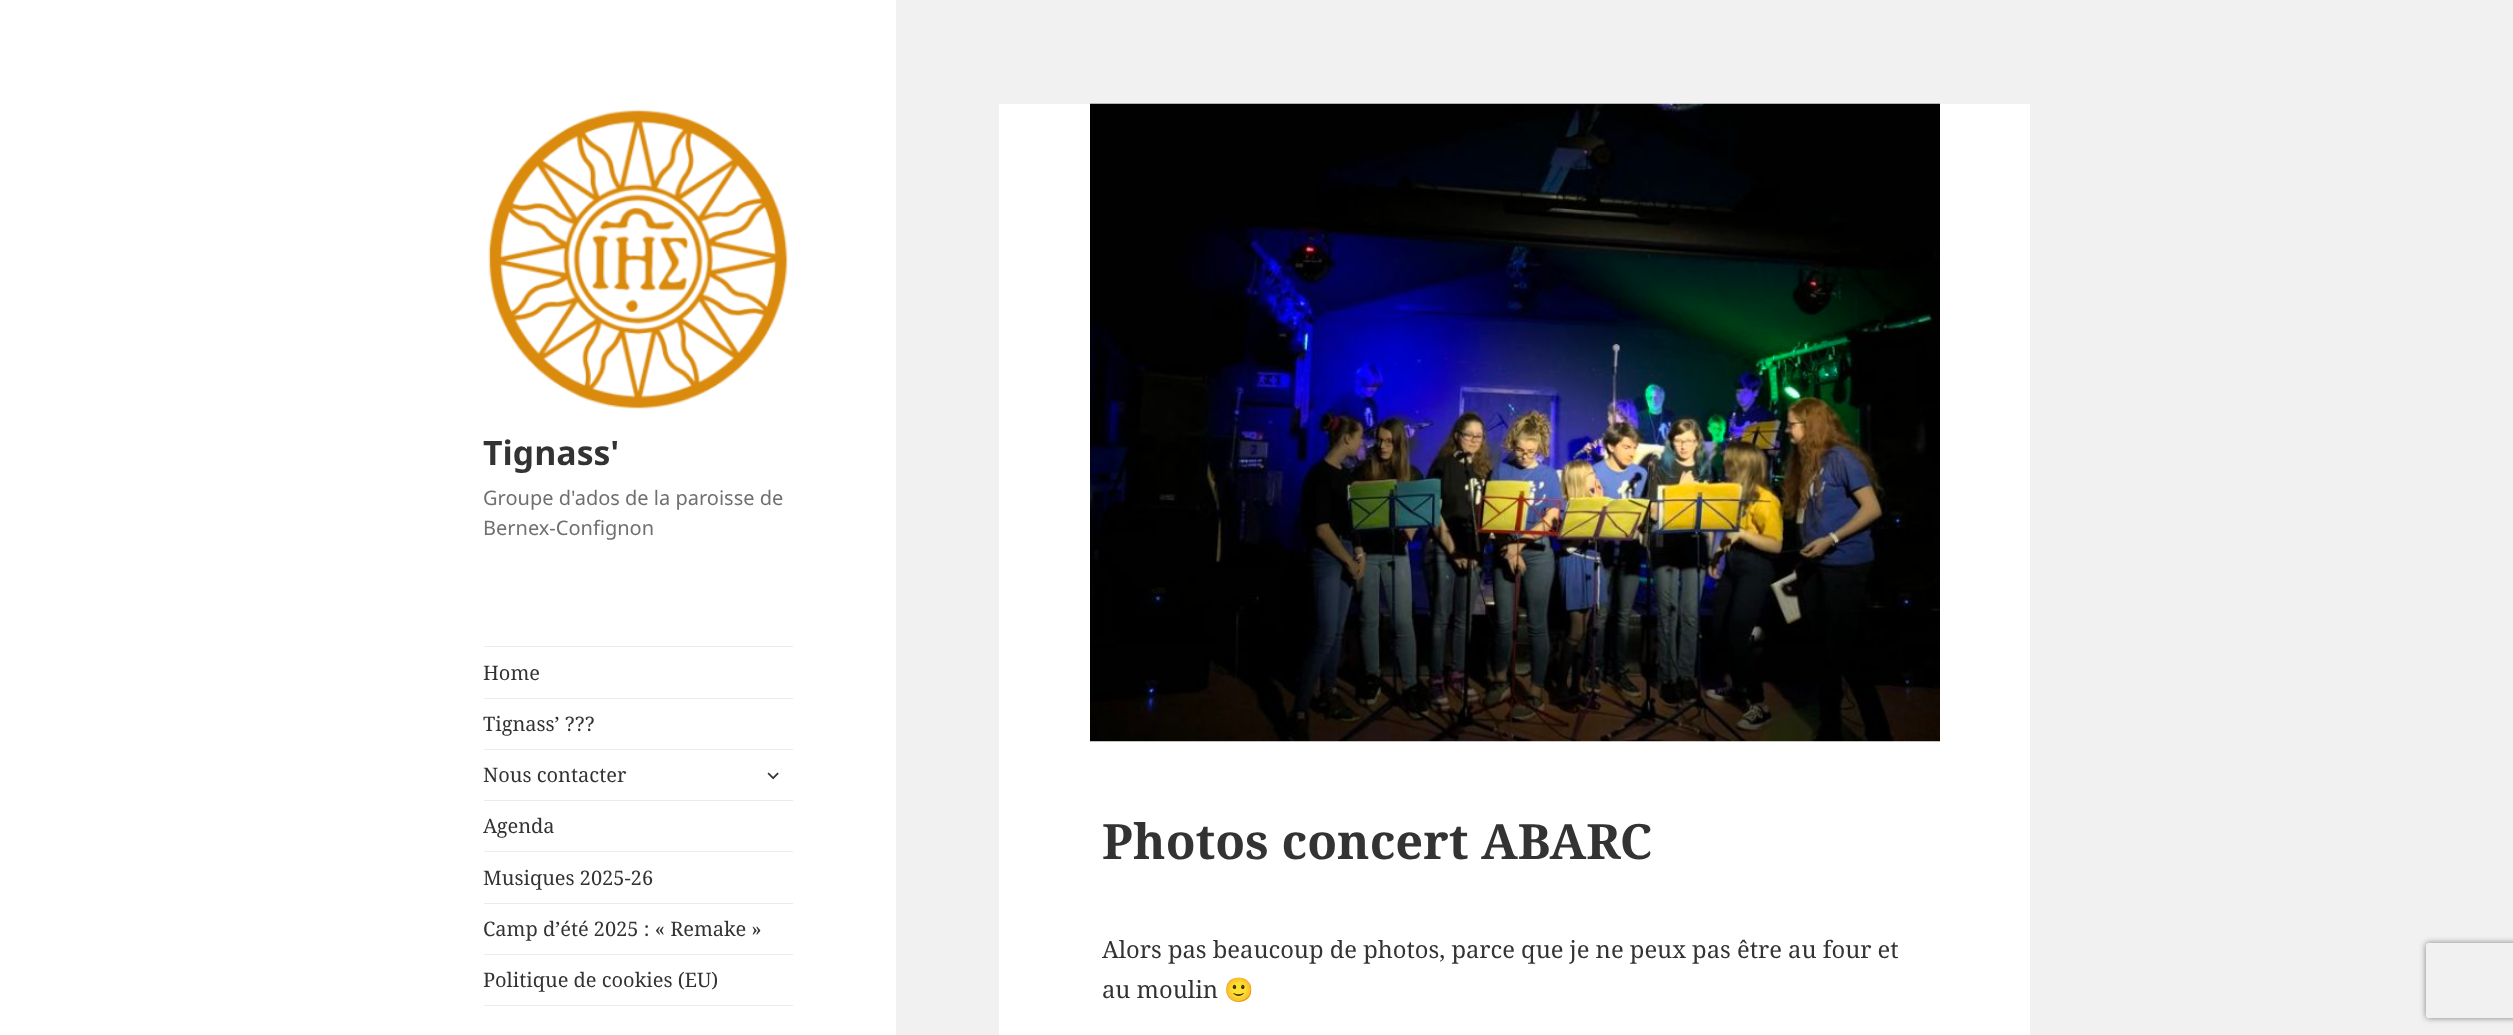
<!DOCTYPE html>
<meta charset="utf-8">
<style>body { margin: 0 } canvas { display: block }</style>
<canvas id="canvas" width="2513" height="1035"></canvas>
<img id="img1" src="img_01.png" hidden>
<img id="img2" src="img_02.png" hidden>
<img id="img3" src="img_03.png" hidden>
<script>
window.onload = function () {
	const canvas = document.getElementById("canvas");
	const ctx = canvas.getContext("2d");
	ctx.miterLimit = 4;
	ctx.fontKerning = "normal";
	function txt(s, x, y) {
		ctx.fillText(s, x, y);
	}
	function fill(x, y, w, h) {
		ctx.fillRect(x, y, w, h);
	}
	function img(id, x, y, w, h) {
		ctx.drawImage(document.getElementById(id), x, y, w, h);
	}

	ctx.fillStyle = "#F1F1F1";
	fill(0, 0, 2513, 1035);
	ctx.fillStyle = "#FFFFFF";
	fill(0, 0, 896, 1035);
	img("img1", 488, 109, 300, 300);
	ctx.fillStyle = "#EBEBEB";
	fill(484, 646, 309, 1);
	fill(484, 1005, 309, 1);
	fill(484, 698, 309, 1);
	fill(484, 749, 309, 1);
	img("img2", 767, 772, 12, 8);
	fill(484, 800, 309, 1);
	fill(484, 851, 309, 1);
	fill(484, 903, 309, 1);
	fill(484, 954, 309, 1);
	ctx.fillStyle = "#FFFFFF";
	fill(999, 104, 1031, 931);
	img("img3", 1090, 103, 850, 639);
	ctx.save();
	ctx.beginPath();
	ctx.moveTo(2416, 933);
	ctx.lineTo(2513, 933);
	ctx.lineTo(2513, 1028);
	ctx.lineTo(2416, 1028);
	ctx.closePath();
	ctx.moveTo(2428.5, 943);
	ctx.lineTo(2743.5, 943);
	ctx.bezierCurveTo(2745, 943, 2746, 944, 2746, 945.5);
	ctx.lineTo(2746, 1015.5);
	ctx.bezierCurveTo(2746, 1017, 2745, 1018, 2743.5, 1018);
	ctx.lineTo(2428.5, 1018);
	ctx.bezierCurveTo(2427, 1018, 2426, 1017, 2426, 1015.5);
	ctx.lineTo(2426, 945.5);
	ctx.bezierCurveTo(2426, 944, 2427, 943, 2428.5, 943);
	ctx.closePath();
	ctx.clip("evenodd");
	ctx.fillStyle = "#808080";
	ctx.filter = "blur(3px)";
	ctx.beginPath();
	ctx.roundRect(2426, 943, 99, 75, 2.5);
	ctx.fill();
	ctx.filter = "none";
	ctx.restore();
	ctx.font = "bold 33.75px Noto Sans";
	ctx.fillStyle = "#333333";
	txt("Tignass'", 483, 465);
	ctx.font = "20px Noto Sans";
	ctx.fillStyle = "#707070";
	txt("Groupe d'ados de la paroisse de", 483, 505);
	txt("Bernex-Confignon", 483, 535);
	ctx.font = "20px Noto Serif";
	ctx.fillStyle = "#333333";
	txt("Home", 483, 680);
	txt("Tignass’ ???", 483, 731);
	txt("Nous contacter", 483, 782);
	txt("Agenda", 483, 833);
	txt("Musiques 2025-26", 483, 885);
	txt("Camp d’été 2025 : « Remake »", 483, 936);
	txt("Politique de cookies (EU)", 483, 987);
	ctx.font = "bold 48.75px Noto Serif";
	txt("Photos concert ABARC", 1102, 859);
	ctx.font = "23.75px Noto Serif";
	txt("Alors pas beaucoup de photos, parce que je ne peux pas être au four et", 1102, 958);
	txt("au moulin", 1102, 998);
	ctx.font = "23.75px Noto Color Emoji";
	txt("🙂", 1224, 998);
};
</script>
